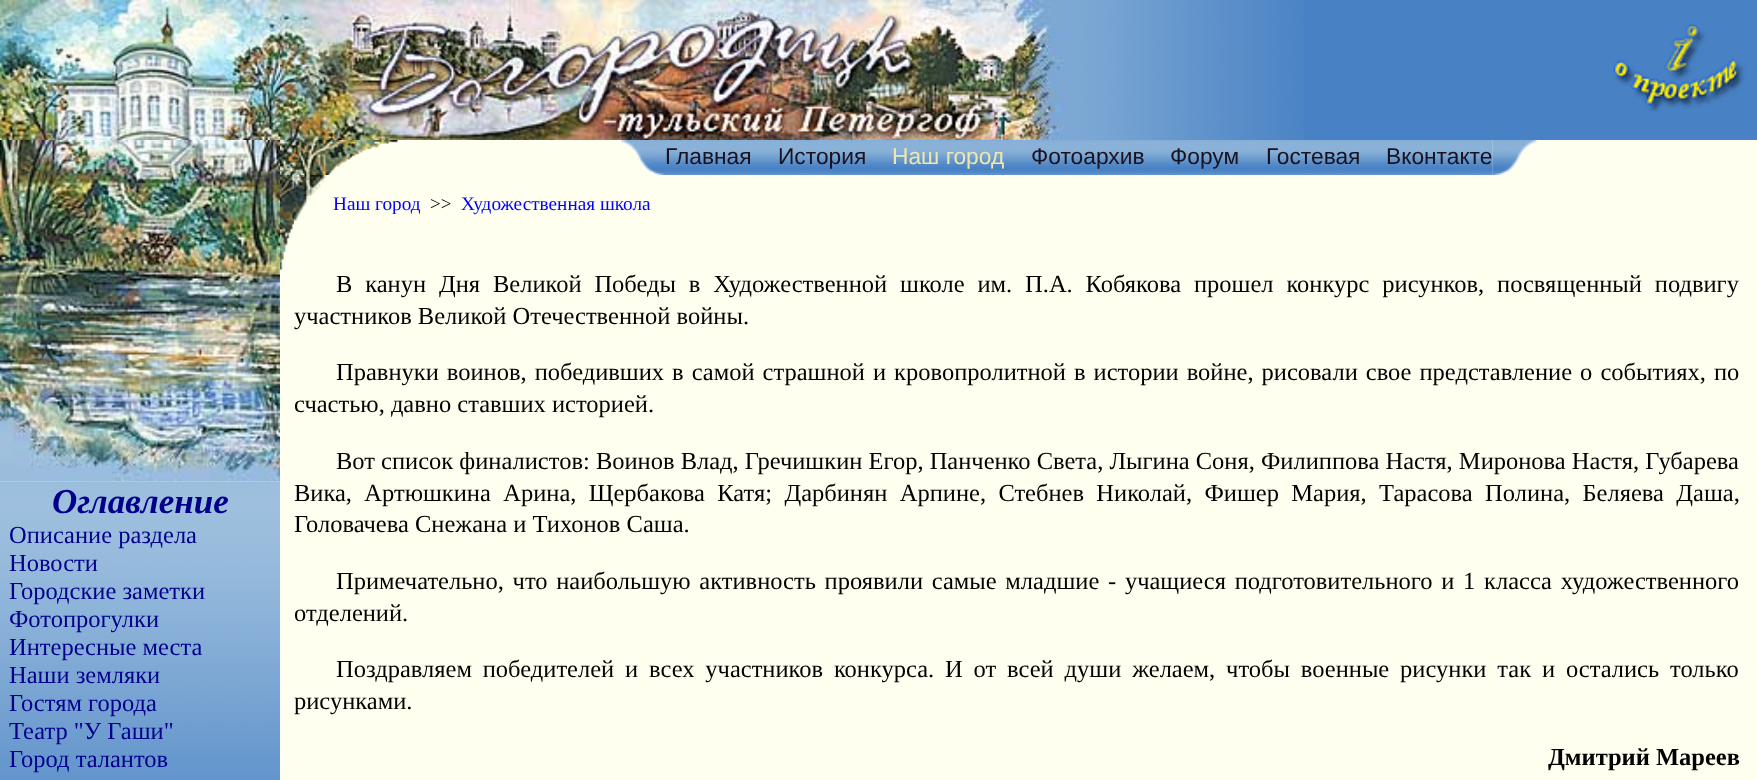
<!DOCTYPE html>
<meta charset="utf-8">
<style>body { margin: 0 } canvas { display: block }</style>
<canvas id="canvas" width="1757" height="780"></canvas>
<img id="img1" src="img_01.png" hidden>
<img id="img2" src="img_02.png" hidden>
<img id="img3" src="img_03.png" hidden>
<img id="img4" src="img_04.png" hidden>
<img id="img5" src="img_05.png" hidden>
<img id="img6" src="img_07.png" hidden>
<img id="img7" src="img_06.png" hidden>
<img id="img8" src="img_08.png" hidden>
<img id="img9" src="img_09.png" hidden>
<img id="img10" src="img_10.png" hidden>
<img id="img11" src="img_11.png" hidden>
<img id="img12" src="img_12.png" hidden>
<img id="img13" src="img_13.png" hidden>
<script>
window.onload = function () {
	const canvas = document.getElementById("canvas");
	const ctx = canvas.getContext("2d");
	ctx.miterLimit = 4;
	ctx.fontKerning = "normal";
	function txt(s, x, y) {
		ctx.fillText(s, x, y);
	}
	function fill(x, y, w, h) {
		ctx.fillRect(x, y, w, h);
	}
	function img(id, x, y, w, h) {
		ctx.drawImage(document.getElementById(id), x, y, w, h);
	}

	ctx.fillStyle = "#FFFFF0";
	fill(0, 0, 1757, 780);
	img("img1", 0, 0, 280, 140);
	ctx.fillStyle = "#4881C4";
	fill(1304, 0, 453, 140);
	img("img2", 280, 0, 798, 140);
	img("img3", 1078, 0, 112, 140);
	img("img4", 1190, 0, 114, 140);
	img("img5", 1613, 24, 132, 89);
	img("img6", 0, 481, 280, 299);
	img("img7", 0, 140, 280, 342);
	img("img8", 280, 140, 118, 35);
	img("img9", 621, 140, 44, 35);
	img("img10", 665, 140, 828, 35);
	img("img11", 1492, 140, 45, 35);
	img("img12", 280, 175, 14, 95);
	img("img13", 294, 175, 32, 46);
	ctx.font = "italic bold 35px Liberation Serif";
	ctx.fillStyle = "#00008B";
	txt("Оглавление", 52, 513);
	ctx.font = "24.5px Liberation Serif";
	txt("Описание раздела", 9, 543);
	txt("Новости", 9, 571);
	txt("Городские заметки", 9, 599);
	txt("Фотопрогулки", 9, 627);
	txt("Интересные места", 9, 655);
	txt("Наши земляки", 9, 683);
	txt("Гостям города", 9, 711);
	txt("Театр \"У Гаши\"", 9, 739);
	txt("Город талантов", 9, 767);
	ctx.font = "22.75px Liberation Sans";
	ctx.fillStyle = "#1B121F";
	txt("Главная", 665, 164);
	txt("История", 778, 164);
	ctx.fillStyle = "#EEE8AA";
	txt("Наш город", 892, 164);
	ctx.fillStyle = "#1B121F";
	txt("Фотоархив", 1031, 164);
	txt("Форум", 1170, 164);
	txt("Гостевая", 1266, 164);
	txt("Вконтакте", 1386, 164);
	ctx.font = "19.25px Liberation Serif";
	ctx.fillStyle = "#0000FF";
	txt("Наш город", 333, 210);
	ctx.fillStyle = "#000000";
	txt(">>", 430, 210);
	ctx.fillStyle = "#0000FF";
	txt("Художественная школа", 461, 210);
	ctx.wordSpacing = "6.75px";
	ctx.font = "24.5px Liberation Serif";
	ctx.fillStyle = "#000000";
	txt("В канун Дня Великой Победы в Художественной школе им. П.А. Кобякова прошел конкурс рисунков, посвященный подвигу", 336, 292);
	ctx.wordSpacing = "0px";
	txt("участников Великой Отечественной войны.", 294, 324);
	ctx.wordSpacing = "1.9px";
	txt("Правнуки воинов, победивших в самой страшной и кровопролитной в истории войне, рисовали свое представление о событиях, по", 336, 380);
	ctx.wordSpacing = "0px";
	txt("счастью, давно ставших историей.", 294, 412);
	txt("Вот список финалистов: Воинов Влад, Гречишкин Егор, Панченко Света, Лыгина Соня, Филиппова Настя, Миронова Настя, Губарева", 336, 469);
	ctx.wordSpacing = "6.25px";
	txt("Вика, Артюшкина Арина, Щербакова Катя; Дарбинян Арпине, Стебнев Николай, Фишер Мария, Тарасова Полина, Беляева Даша,", 294, 501);
	ctx.wordSpacing = "0px";
	txt("Головачева Снежана и Тихонов Саша.", 294, 532);
	ctx.wordSpacing = "2.6px";
	txt("Примечательно, что наибольшую активность проявили самые младшие - учащиеся подготовительного и 1 класса художественного", 336, 589);
	ctx.wordSpacing = "0px";
	txt("отделений.", 294, 621);
	ctx.wordSpacing = "4.75px";
	txt("Поздравляем победителей и всех участников конкурса. И от всей души желаем, чтобы военные рисунки так и остались только", 336, 677);
	ctx.wordSpacing = "0px";
	txt("рисунками.", 294, 709);
	ctx.font = "bold 24.5px Liberation Serif";
	txt("Дмитрий Мареев", 1548, 765);
};
</script>
